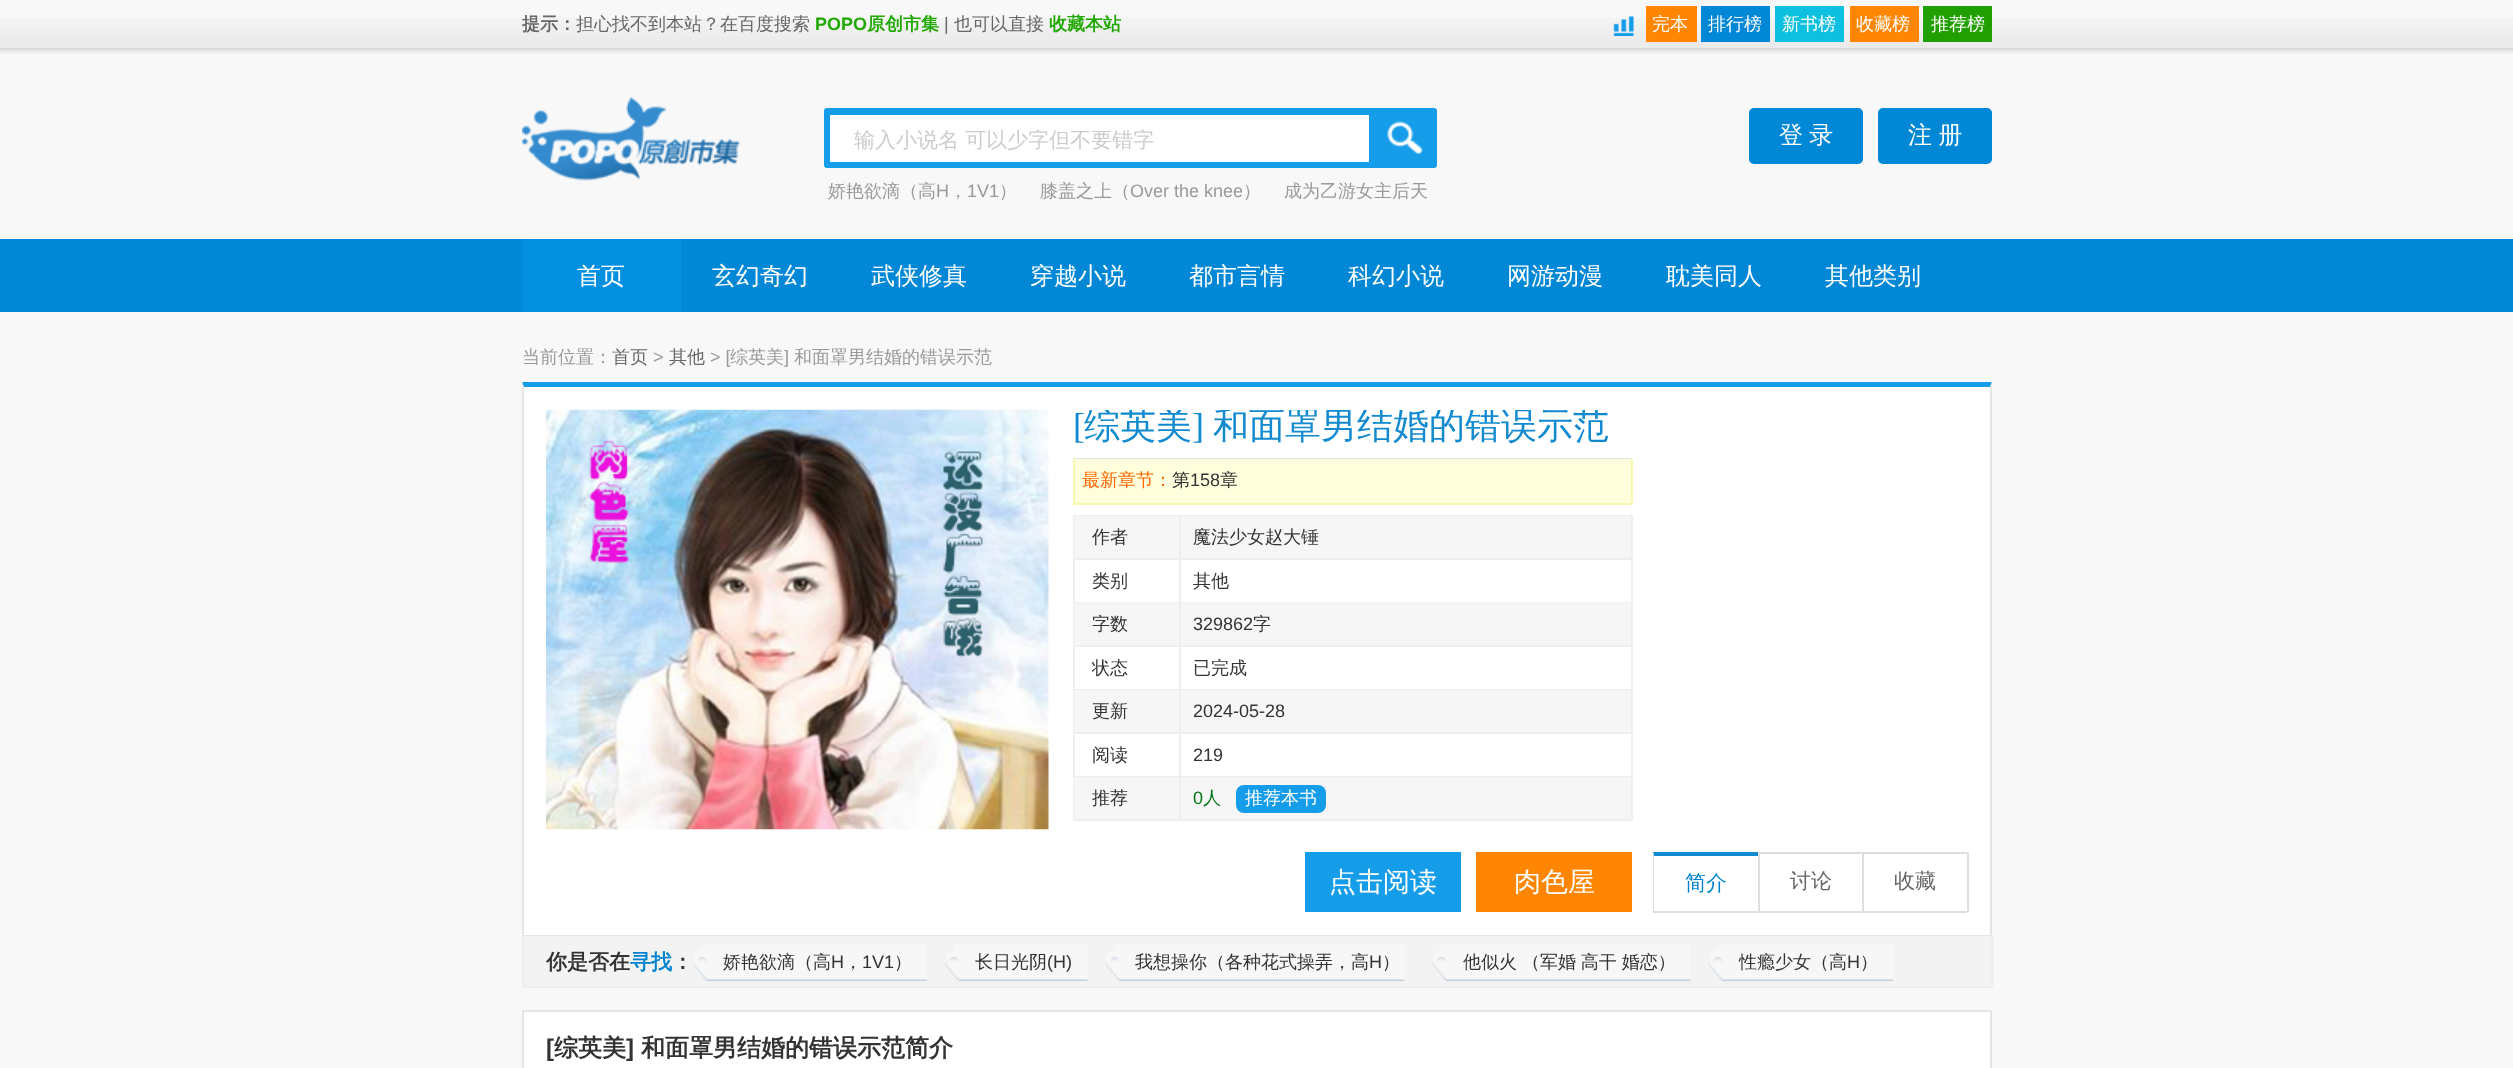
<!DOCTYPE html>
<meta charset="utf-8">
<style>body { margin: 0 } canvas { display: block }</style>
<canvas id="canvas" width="2513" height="1068"></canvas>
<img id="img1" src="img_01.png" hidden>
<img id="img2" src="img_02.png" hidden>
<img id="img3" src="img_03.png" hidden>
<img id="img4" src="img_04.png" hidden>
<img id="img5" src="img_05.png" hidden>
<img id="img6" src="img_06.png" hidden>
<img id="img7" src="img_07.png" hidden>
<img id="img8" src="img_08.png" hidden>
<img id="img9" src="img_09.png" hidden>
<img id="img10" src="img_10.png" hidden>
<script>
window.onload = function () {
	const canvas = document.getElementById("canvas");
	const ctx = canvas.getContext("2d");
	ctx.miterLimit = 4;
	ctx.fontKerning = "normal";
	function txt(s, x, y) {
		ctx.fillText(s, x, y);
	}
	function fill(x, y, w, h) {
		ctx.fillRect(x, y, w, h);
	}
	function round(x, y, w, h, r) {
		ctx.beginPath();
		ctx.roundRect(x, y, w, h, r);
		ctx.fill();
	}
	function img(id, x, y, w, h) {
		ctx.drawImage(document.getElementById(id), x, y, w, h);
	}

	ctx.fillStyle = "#F8F8F8";
	fill(0, 0, 2513, 1068);
	img("img1", 0, 18, 2513, 36);
	img("img2", 1613, 16, 21, 20);
	ctx.fillStyle = "#FE8602";
	fill(1646, 6, 51, 36);
	ctx.fillStyle = "#0087D5";
	fill(1701, 6, 69, 36);
	ctx.fillStyle = "#0EC0E0";
	fill(1775, 6, 69, 36);
	ctx.fillStyle = "#FE8602";
	fill(1850, 6, 69, 36);
	ctx.fillStyle = "#229F00";
	fill(1923, 6, 69, 36);
	img("img3", 522, 97, 218, 84);
	ctx.fillStyle = "#169DEA";
	round(824, 108, 613, 60, 3);
	ctx.fillStyle = "#FFFFFF";
	fill(830, 115, 539, 47);
	img("img4", 1387, 121, 36, 34);
	ctx.fillStyle = "#0087D5";
	round(1749, 108, 114, 56, 5);
	round(1878, 108, 114, 56, 5);
	fill(0, 239, 2513, 73);
	ctx.fillStyle = "#0490E0";
	fill(522, 239, 159, 73);
	ctx.fillStyle = "#FFFFFF";
	fill(522, 383, 1470, 552);
	ctx.fillStyle = "#169DEA";
	ctx.beginPath();
	ctx.moveTo(522, 382);
	ctx.lineTo(1992, 382);
	ctx.lineTo(1990, 387);
	ctx.lineTo(524, 387);
	ctx.closePath();
	ctx.fill();
	ctx.fillStyle = "#E5E5E5";
	ctx.beginPath();
	ctx.moveTo(1992, 382);
	ctx.lineTo(1992, 936);
	ctx.lineTo(1990, 934);
	ctx.lineTo(1990, 387);
	ctx.closePath();
	ctx.fill();
	fill(522, 935, 1470, 1);
	ctx.beginPath();
	ctx.moveTo(522, 936);
	ctx.lineTo(522, 382);
	ctx.lineTo(524, 387);
	ctx.lineTo(524, 934);
	ctx.closePath();
	ctx.fill();
	img("img5", 546, 409, 503, 421);
	ctx.fillStyle = "#E2E2E2";
	fill(1073, 458, 559, 1);
	ctx.fillStyle = "#FFFFDE";
	fill(1075, 459, 556, 44);
	ctx.fillStyle = "#FBF6AD";
	fill(1631, 459, 2, 45);
	fill(1073, 503, 559, 2);
	fill(1073, 459, 2, 45);
	ctx.fillStyle = "#EEEEEE";
	fill(1073, 515, 559, 1);
	fill(1631, 515, 2, 306);
	fill(1073, 515, 2, 306);
	ctx.fillStyle = "#F6F6F6";
	fill(1074, 516, 557, 42);
	ctx.fillStyle = "#EEEEEE";
	fill(1074, 558, 557, 2);
	fill(1179, 516, 2, 42);
	fill(1074, 602, 557, 1);
	fill(1179, 560, 2, 42);
	ctx.fillStyle = "#F6F6F6";
	fill(1074, 603, 557, 42);
	ctx.fillStyle = "#EEEEEE";
	fill(1074, 645, 557, 2);
	fill(1179, 603, 2, 42);
	fill(1074, 689, 557, 1);
	fill(1179, 647, 2, 42);
	ctx.fillStyle = "#F6F6F6";
	fill(1074, 690, 557, 42);
	ctx.fillStyle = "#EEEEEE";
	fill(1074, 732, 557, 2);
	fill(1179, 690, 2, 42);
	fill(1074, 776, 557, 1);
	fill(1179, 734, 2, 42);
	ctx.fillStyle = "#F6F6F6";
	fill(1074, 777, 557, 42);
	ctx.fillStyle = "#EEEEEE";
	fill(1074, 819, 557, 2);
	fill(1179, 777, 2, 42);
	ctx.fillStyle = "#169DEA";
	round(1236, 785, 90, 28, 8);
	fill(1305, 852, 156, 60);
	ctx.fillStyle = "#FE8602";
	fill(1476, 852, 156, 60);
	ctx.fillStyle = "#DEDEDE";
	fill(1967, 852, 2, 60);
	ctx.fillStyle = "#118ACF";
	ctx.beginPath();
	ctx.moveTo(1653, 852);
	ctx.lineTo(1758, 852);
	ctx.lineTo(1758, 856);
	ctx.lineTo(1654, 856);
	ctx.closePath();
	ctx.fill();
	ctx.fillStyle = "#DEDEDE";
	fill(1653, 911, 314, 2);
	ctx.beginPath();
	ctx.moveTo(1653, 912);
	ctx.lineTo(1653, 852);
	ctx.lineTo(1654, 856);
	ctx.lineTo(1654, 910);
	ctx.closePath();
	ctx.fill();
	fill(1758, 852, 209, 2);
	fill(1758, 852, 2, 60);
	fill(1862, 852, 2, 60);
	ctx.fillStyle = "#F3F3F3";
	fill(524, 936, 1467, 50);
	ctx.fillStyle = "#EDEDED";
	fill(1991, 936, 2, 51);
	fill(522, 986, 1470, 2);
	fill(522, 936, 2, 51);
	img("img6", 693, 944, 234, 37);
	img("img7", 945, 944, 143, 37);
	img("img8", 1105, 944, 300, 37);
	img("img9", 1432, 944, 259, 37);
	img("img10", 1708, 944, 185, 37);
	ctx.fillStyle = "#FFFFFF";
	ctx.beginPath();
	ctx.rect(523, 1011, 1468, 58);
	ctx.fill();
	ctx.strokeStyle = "#E5E5E5";
	ctx.lineWidth = 2;
	ctx.stroke();
	ctx.font = "bold 18px WenQuanYi Zen Hei";
	ctx.fillStyle = "#666666";
	txt("提示：", 522, 30);
	ctx.font = "500 18px WenQuanYi Zen Hei";
	txt("担心找不到本站？在百度搜索", 576, 30);
	ctx.font = "bold 18px Liberation Sans";
	ctx.fillStyle = "#1FA800";
	txt("POPO", 815, 30);
	ctx.font = "bold 18px WenQuanYi Zen Hei";
	txt("原创市集", 867, 30);
	ctx.font = "18px Liberation Sans";
	ctx.fillStyle = "#666666";
	txt("|", 944, 30);
	ctx.font = "500 18px WenQuanYi Zen Hei";
	txt("也可以直接", 954, 30);
	ctx.font = "bold 18px WenQuanYi Zen Hei";
	ctx.fillStyle = "#1FA800";
	txt("收藏本站", 1049, 30);
	ctx.font = "500 18px WenQuanYi Zen Hei";
	ctx.fillStyle = "#FFFFFF";
	txt("完本", 1652, 30);
	txt("排行榜", 1708, 30);
	txt("新书榜", 1782, 30);
	txt("收藏榜", 1856, 30);
	txt("推荐榜", 1931, 30);
	ctx.font = "500 21px WenQuanYi Zen Hei";
	ctx.fillStyle = "#CCCCCC";
	txt("输入小说名 可以少字但不要错字", 854, 147);
	ctx.font = "500 18px WenQuanYi Zen Hei";
	ctx.fillStyle = "#999999";
	txt("娇艳欲滴（高", 828, 197);
	ctx.font = "18px Liberation Sans";
	txt("H", 936, 197);
	ctx.font = "500 18px WenQuanYi Zen Hei";
	txt("，", 949, 197);
	ctx.font = "18px Liberation Sans";
	txt("1V1", 967, 197);
	ctx.font = "500 18px WenQuanYi Zen Hei";
	txt("）", 999, 197);
	txt("膝盖之上（", 1040, 197);
	ctx.font = "18px Liberation Sans";
	txt("Over the knee", 1130, 197);
	ctx.font = "500 18px WenQuanYi Zen Hei";
	txt("）", 1243, 197);
	txt("成为乙游女主后天", 1284, 197);
	ctx.wordSpacing = "-1px";
	ctx.font = "500 24px WenQuanYi Zen Hei";
	ctx.fillStyle = "#FFFFFF";
	txt("登 录", 1779, 143);
	txt("注 册", 1908, 143);
	ctx.wordSpacing = "0px";
	txt("首页", 577, 284);
	txt("玄幻奇幻", 712, 284);
	txt("武侠修真", 871, 284);
	txt("穿越小说", 1030, 284);
	txt("都市言情", 1189, 284);
	txt("科幻小说", 1348, 284);
	txt("网游动漫", 1507, 284);
	txt("耽美同人", 1666, 284);
	txt("其他类别", 1825, 284);
	ctx.font = "500 18px WenQuanYi Zen Hei";
	ctx.fillStyle = "#999999";
	txt("当前位置：", 522, 363);
	ctx.fillStyle = "#666666";
	txt("首页", 612, 363);
	ctx.font = "18px Liberation Sans";
	ctx.fillStyle = "#999999";
	txt(">", 653, 363);
	ctx.font = "500 18px WenQuanYi Zen Hei";
	ctx.fillStyle = "#666666";
	txt("其他", 669, 363);
	ctx.font = "18px Liberation Sans";
	ctx.fillStyle = "#999999";
	txt("> [", 710, 363);
	ctx.font = "500 18px WenQuanYi Zen Hei";
	txt("综英美", 730, 363);
	ctx.font = "18px Liberation Sans";
	txt("]", 784, 363);
	ctx.font = "500 18px WenQuanYi Zen Hei";
	txt("和面罩男结婚的错误示范", 794, 363);
	ctx.font = "36px Liberation Serif";
	ctx.fillStyle = "#118ACF";
	txt("[", 1073, 438);
	ctx.save();
	ctx.beginPath();
	ctx.rect(1073, 410, 559, 48);
	ctx.clip();
	ctx.font = "500 36px WenQuanYi Zen Hei";
	txt("综英美", 1084, 438);
	ctx.restore();
	txt("]", 1192, 438);
	ctx.save();
	ctx.beginPath();
	ctx.rect(1073, 410, 559, 48);
	ctx.clip();
	ctx.font = "500 36px WenQuanYi Zen Hei";
	txt("和面罩男结婚的错误示范", 1213, 438);
	ctx.restore();
	ctx.font = "500 18px WenQuanYi Zen Hei";
	ctx.fillStyle = "#FF6600";
	txt("最新章节：", 1082, 486);
	ctx.fillStyle = "#333333";
	txt("第", 1172, 486);
	ctx.font = "18px Liberation Sans";
	txt("158", 1190, 486);
	ctx.font = "500 18px WenQuanYi Zen Hei";
	txt("章", 1220, 486);
	txt("作者", 1092, 543);
	txt("魔法少女赵大锤", 1193, 543);
	txt("类别", 1092, 587);
	txt("其他", 1193, 587);
	txt("字数", 1092, 630);
	ctx.font = "18px Liberation Sans";
	txt("329862", 1193, 630);
	ctx.font = "500 18px WenQuanYi Zen Hei";
	txt("字", 1253, 630);
	txt("状态", 1092, 674);
	txt("已完成", 1193, 674);
	txt("更新", 1092, 717);
	ctx.font = "18px Liberation Sans";
	txt("2024-05-28", 1193, 717);
	ctx.font = "500 18px WenQuanYi Zen Hei";
	txt("阅读", 1092, 761);
	ctx.font = "18px Liberation Sans";
	txt("219", 1193, 761);
	ctx.font = "500 18px WenQuanYi Zen Hei";
	txt("推荐", 1092, 804);
	ctx.font = "18px Liberation Sans";
	ctx.fillStyle = "#007511";
	txt("0", 1193, 804);
	ctx.font = "500 18px WenQuanYi Zen Hei";
	txt("人", 1203, 804);
	ctx.fillStyle = "#FFFFFF";
	txt("推荐本书", 1245, 804);
	ctx.font = "500 27px WenQuanYi Zen Hei";
	txt("点击阅读", 1329, 891);
	txt("肉色屋", 1514, 891);
	ctx.font = "500 21px WenQuanYi Zen Hei";
	ctx.fillStyle = "#0083CE";
	txt("简介", 1685, 890);
	ctx.fillStyle = "#666666";
	txt("讨论", 1790, 888);
	txt("收藏", 1894, 888);
	ctx.font = "bold 21px WenQuanYi Zen Hei";
	ctx.fillStyle = "#333333";
	txt("你是否在", 546, 969);
	ctx.fillStyle = "#0083CE";
	txt("寻找", 630, 969);
	ctx.fillStyle = "#333333";
	txt("：", 672, 969);
	ctx.font = "500 18px WenQuanYi Zen Hei";
	txt("娇艳欲滴（高", 723, 968);
	ctx.font = "18px Liberation Sans";
	txt("H", 831, 968);
	ctx.font = "500 18px WenQuanYi Zen Hei";
	txt("，", 844, 968);
	ctx.font = "18px Liberation Sans";
	txt("1V1", 862, 968);
	ctx.font = "500 18px WenQuanYi Zen Hei";
	txt("）", 894, 968);
	txt("长日光阴", 975, 968);
	ctx.font = "18px Liberation Sans";
	txt("(H)", 1047, 968);
	ctx.font = "500 18px WenQuanYi Zen Hei";
	txt("我想操你（各种花式操弄，高", 1135, 968);
	ctx.font = "18px Liberation Sans";
	txt("H", 1369, 968);
	ctx.font = "500 18px WenQuanYi Zen Hei";
	txt("）", 1382, 968);
	ctx.wordSpacing = "-0.5px";
	txt("他似火 （军婚 高干 婚恋）", 1463, 968);
	ctx.wordSpacing = "0px";
	txt("性瘾少女（高", 1739, 968);
	ctx.font = "18px Liberation Sans";
	txt("H", 1847, 968);
	ctx.font = "500 18px WenQuanYi Zen Hei";
	txt("）", 1860, 968);
	ctx.font = "bold 24px Liberation Sans";
	txt("[", 546, 1056);
	ctx.font = "bold 24px WenQuanYi Zen Hei";
	txt("综英美", 554, 1056);
	ctx.font = "bold 24px Liberation Sans";
	txt("]", 626, 1056);
	ctx.font = "bold 24px WenQuanYi Zen Hei";
	txt("和面罩男结婚的错误示范简介", 641, 1056);
};
</script>
